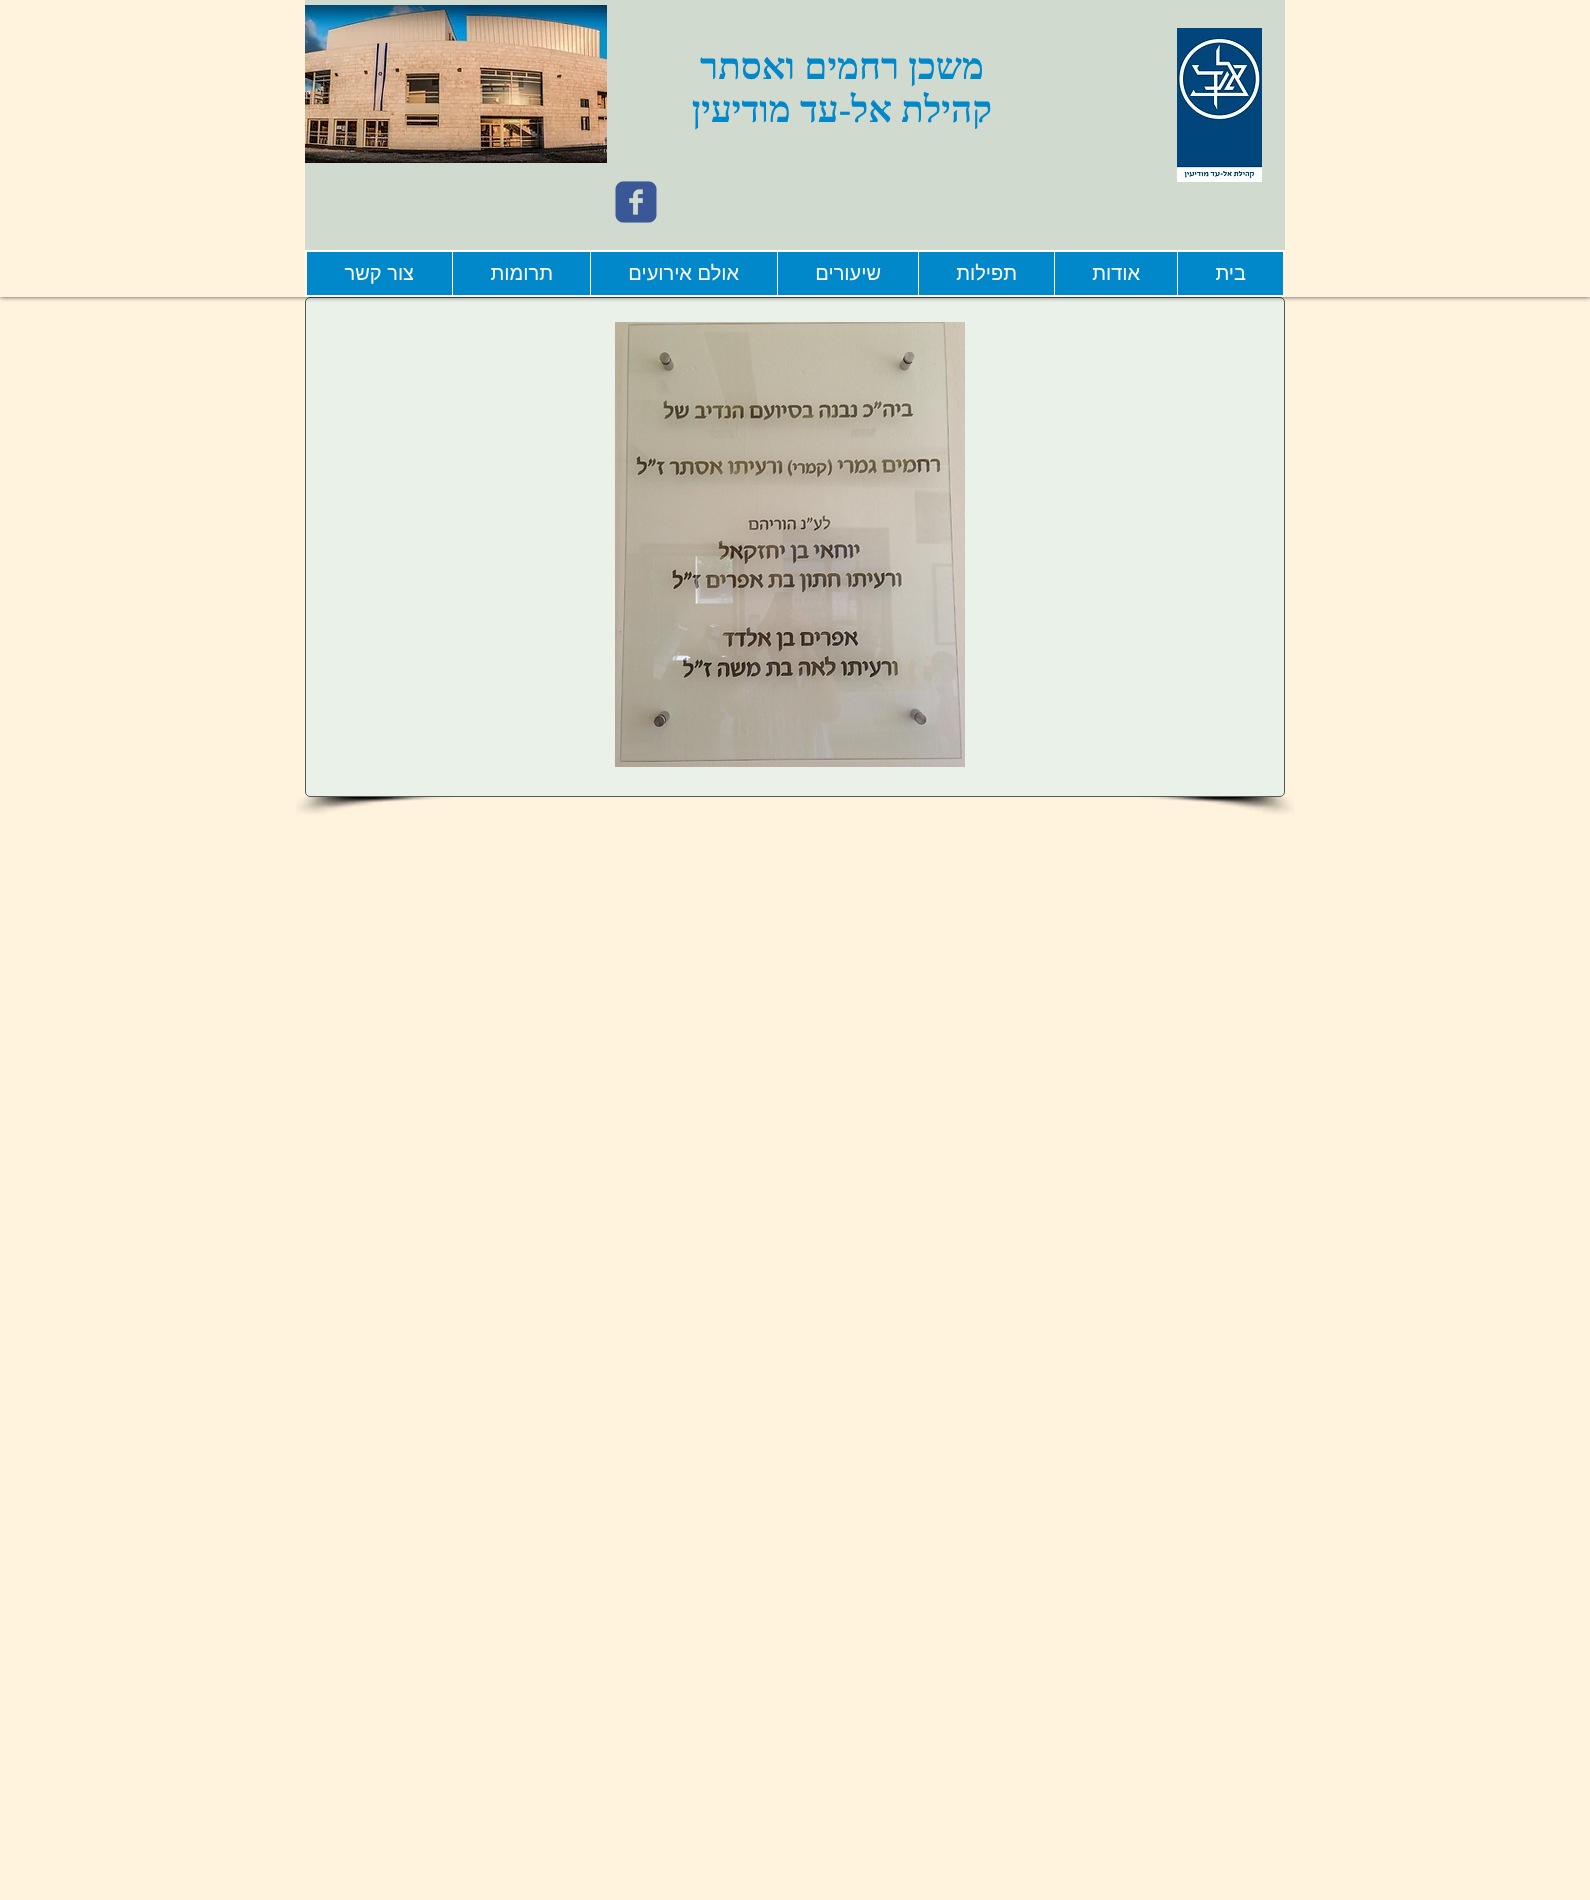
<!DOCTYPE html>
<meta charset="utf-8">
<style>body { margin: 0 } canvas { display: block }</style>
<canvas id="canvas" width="1590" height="1900"></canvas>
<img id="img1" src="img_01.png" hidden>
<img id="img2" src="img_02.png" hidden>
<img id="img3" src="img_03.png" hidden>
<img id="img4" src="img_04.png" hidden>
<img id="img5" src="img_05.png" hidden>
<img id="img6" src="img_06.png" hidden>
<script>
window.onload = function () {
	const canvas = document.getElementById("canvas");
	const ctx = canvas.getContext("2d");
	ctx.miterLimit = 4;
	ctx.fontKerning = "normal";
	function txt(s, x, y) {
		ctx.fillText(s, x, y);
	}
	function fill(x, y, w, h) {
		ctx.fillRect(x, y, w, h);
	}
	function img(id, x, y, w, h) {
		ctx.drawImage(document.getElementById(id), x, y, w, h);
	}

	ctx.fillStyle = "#FFF3DE";
	fill(0, 0, 1590, 1900);
	ctx.fillStyle = "#EAF1E9";
	ctx.beginPath();
	ctx.roundRect(305.5, 297.5, 979, 499, 4.5);
	ctx.fill();
	ctx.strokeStyle = "#525A51";
	ctx.stroke();
	ctx.save();
	ctx.beginPath();
	ctx.rect(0, 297, 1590, 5);
	ctx.clip();
	ctx.fillStyle = "rgba(0, 0, 0, 0.7)";
	ctx.filter = "blur(2.5px)";
	ctx.beginPath();
	ctx.rect(0, 0, 1590, 297);
	ctx.fill();
	ctx.filter = "none";
	ctx.restore();
	ctx.fillStyle = "#D0DACF";
	fill(305, 0, 980, 250);
	img("img1", 1177, 28, 85, 154);
	img("img2", 305, 5, 302, 158);
	img("img3", 615, 181, 42, 42);
	ctx.fillStyle = "#0088CB";
	ctx.beginPath();
	ctx.rect(306, 251, 978, 45);
	ctx.fill();
	ctx.strokeStyle = "#FFFFFF";
	ctx.lineWidth = 2;
	ctx.stroke();
	ctx.fillStyle = "#FFFFFF";
	fill(1177, 252, 1, 43);
	fill(1054, 252, 1, 43);
	fill(918, 252, 1, 43);
	fill(777, 252, 1, 43);
	fill(590, 252, 1, 43);
	fill(452, 252, 1, 43);
	img("img4", 1140, 797, 154, 18);
	img("img5", 296, 797, 154, 18);
	img("img6", 615, 322, 350, 445);
	ctx.direction = "rtl";
	ctx.font = "bold 37px Liberation Serif";
	ctx.fillStyle = "#0088CB";
	txt("משכן רחמים ואסתר", 984, 79);
	txt("קהילת אל-עד מודיעין", 992, 122);
	ctx.font = "20px Liberation Sans";
	ctx.fillStyle = "#FFFFFF";
	txt("בית", 1246, 280);
	txt("אודות", 1140, 280);
	txt("תפילות", 1017, 280);
	txt("שיעורים", 881, 280);
	txt("אולם אירועים", 739, 280);
	txt("תרומות", 553, 280);
	txt("צור קשר", 414, 280);
};
</script>
